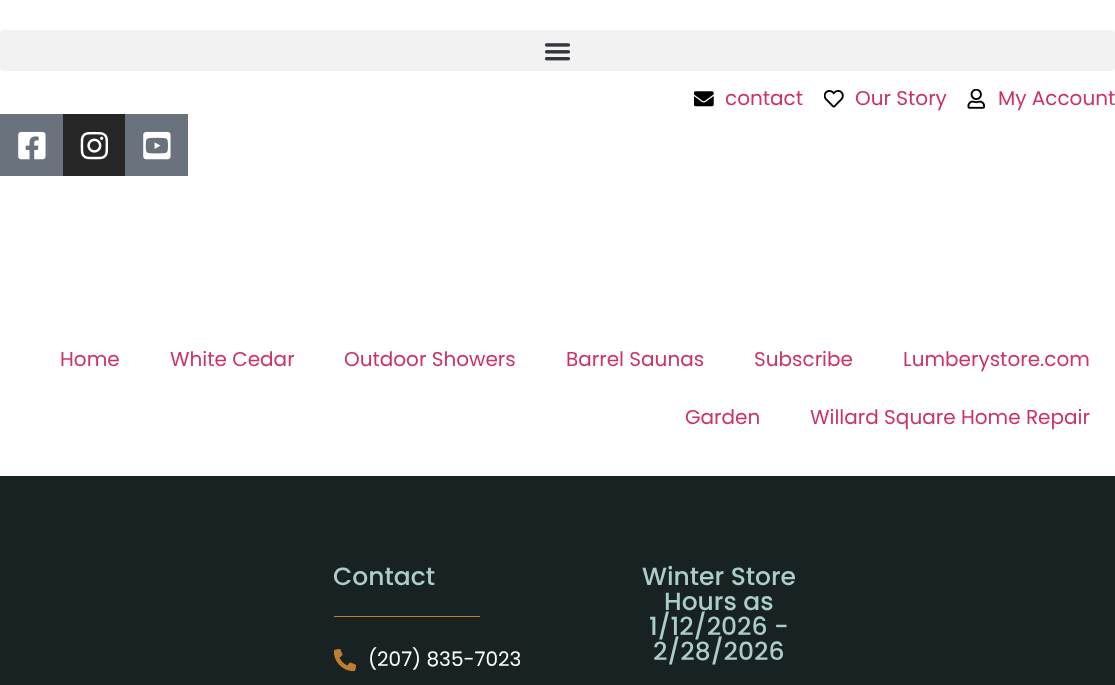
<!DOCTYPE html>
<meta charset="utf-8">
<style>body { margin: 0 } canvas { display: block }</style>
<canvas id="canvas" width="1115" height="685"></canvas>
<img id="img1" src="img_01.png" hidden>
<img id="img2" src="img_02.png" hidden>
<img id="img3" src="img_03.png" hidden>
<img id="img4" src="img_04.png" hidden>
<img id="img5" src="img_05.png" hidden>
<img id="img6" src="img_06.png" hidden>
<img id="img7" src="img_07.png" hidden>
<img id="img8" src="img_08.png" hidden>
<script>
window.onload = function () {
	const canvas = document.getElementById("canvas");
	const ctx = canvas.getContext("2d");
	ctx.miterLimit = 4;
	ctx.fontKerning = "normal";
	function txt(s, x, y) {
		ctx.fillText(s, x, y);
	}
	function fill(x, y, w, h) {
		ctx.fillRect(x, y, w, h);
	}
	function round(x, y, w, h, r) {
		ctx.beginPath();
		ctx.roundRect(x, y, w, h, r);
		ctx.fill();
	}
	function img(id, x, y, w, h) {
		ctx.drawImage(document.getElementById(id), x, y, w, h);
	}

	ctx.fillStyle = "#FFFFFF";
	fill(0, 0, 1115, 685);
	ctx.fillStyle = "#F2F2F2";
	round(0, 30, 1115, 41, 4);
	img("img1", 544, 43, 27, 18);
	img("img2", 694, 91, 20, 16);
	img("img3", 824, 90, 20, 18);
	img("img4", 967, 89, 18, 20);
	ctx.fillStyle = "#69727D";
	fill(0, 114, 63, 62);
	img("img5", 18, 131, 28, 29);
	ctx.fillStyle = "#262626";
	fill(63, 114, 62, 62);
	img("img6", 80, 131, 29, 29);
	ctx.fillStyle = "#69727D";
	fill(125, 114, 63, 62);
	img("img7", 143, 131, 28, 29);
	ctx.fillStyle = "#182222";
	fill(0, 476, 1115, 209);
	ctx.fillStyle = "#BF7E2F";
	fill(334, 616, 146, 1);
	img("img8", 334, 649, 22, 22);
	ctx.font = "20px Poppins";
	ctx.fillStyle = "#CC3366";
	txt("contact", 725, 105);
	txt("Our Story", 855, 105);
	txt("My Account", 998, 105);
	txt("Home", 60, 366);
	txt("White Cedar", 170, 366);
	txt("Outdoor Showers", 344, 366);
	txt("Barrel Saunas", 566, 366);
	txt("Subscribe", 754, 366);
	txt("Lumberystore.com", 903, 366);
	txt("Garden", 685, 424);
	txt("Willard Square Home Repair", 810, 424);
	ctx.font = "500 25px Poppins";
	ctx.fillStyle = "#ABCEC9";
	txt("Contact", 333, 585);
	ctx.font = "20px Poppins";
	ctx.fillStyle = "#FFFFFF";
	txt("(207) 835-7023", 368, 666);
	ctx.font = "500 25px Poppins";
	ctx.fillStyle = "#ABCEC9";
	txt("Winter Store", 642, 585);
	txt("Hours as", 664, 610);
	txt("1/12/2026 -", 649, 635);
	txt("2/28/2026", 653, 660);
};
</script>
